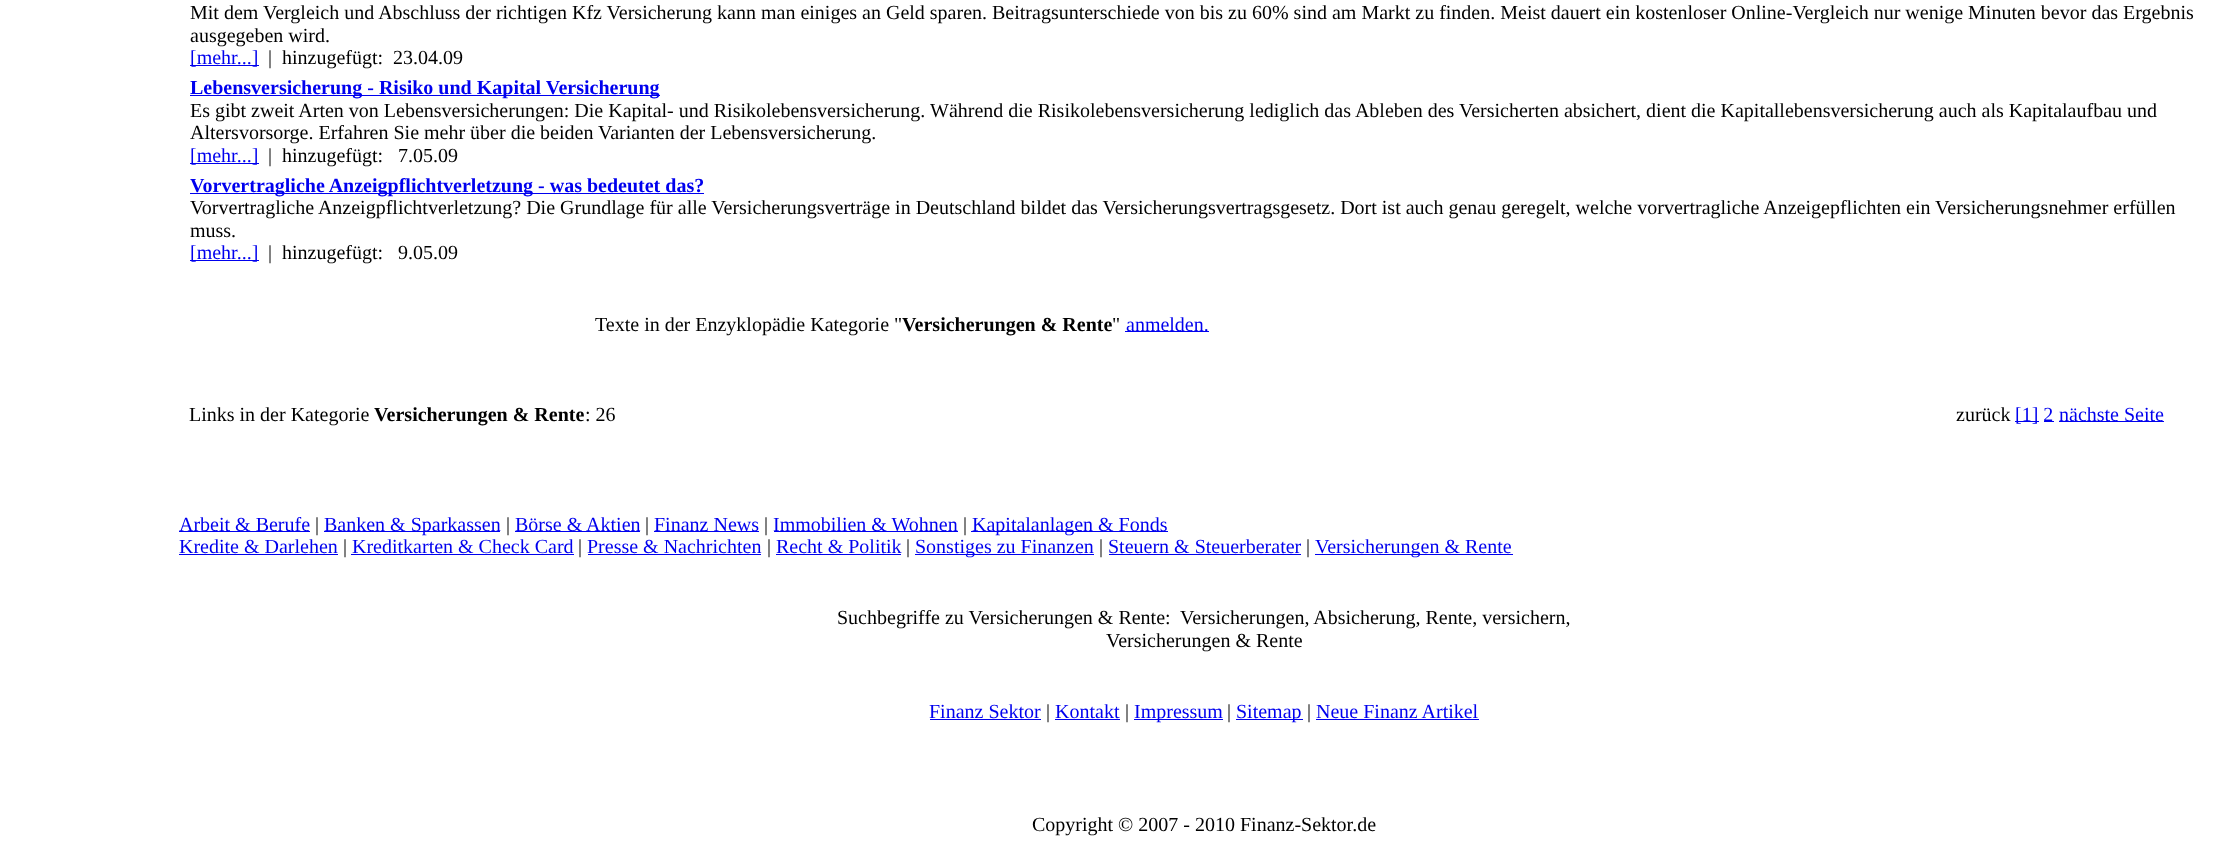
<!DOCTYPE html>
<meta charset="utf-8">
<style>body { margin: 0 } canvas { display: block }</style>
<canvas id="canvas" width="2239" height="848"></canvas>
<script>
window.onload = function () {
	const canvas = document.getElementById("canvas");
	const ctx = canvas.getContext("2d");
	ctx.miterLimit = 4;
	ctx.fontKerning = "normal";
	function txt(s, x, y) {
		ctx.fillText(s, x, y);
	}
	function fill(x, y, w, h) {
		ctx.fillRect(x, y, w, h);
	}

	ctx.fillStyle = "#FFFFFF";
	fill(0, 0, 2239, 848);
	ctx.fillStyle = "#0000EE";
	fill(190, 65, 69, 1);
	fill(190, 95, 470, 1);
	fill(190, 163, 69, 1);
	fill(190, 193, 514, 1);
	fill(190, 260, 69, 1);
	fill(1125, 331, 84, 1);
	fill(2015, 421, 24, 1);
	fill(2059, 421, 105, 1);
	fill(2044, 421, 10, 1);
	fill(179, 531, 131, 1);
	fill(324, 531, 176, 1);
	fill(515, 531, 125, 1);
	fill(654, 531, 105, 1);
	fill(774, 531, 184, 1);
	fill(971, 531, 197, 1);
	fill(179, 554, 159, 1);
	fill(351, 554, 223, 1);
	fill(588, 554, 173, 1);
	fill(776, 554, 125, 1);
	fill(915, 554, 179, 1);
	fill(1109, 554, 192, 1);
	fill(1315, 554, 198, 1);
	fill(930, 719, 111, 1);
	fill(1055, 719, 65, 1);
	fill(1134, 719, 89, 1);
	fill(1236, 719, 67, 1);
	fill(1316, 719, 163, 1);
	ctx.font = "20px Liberation Serif";
	ctx.fillStyle = "#000000";
	txt("Mit dem Vergleich und Abschluss der richtigen Kfz Versicherung kann man einiges an Geld sparen. Beitragsunterschiede von bis zu 60% sind am Markt zu finden. Meist dauert ein kostenloser Online-Vergleich nur wenige Minuten bevor das Ergebnis", 190, 19);
	txt("ausgegeben wird.", 190, 42);
	ctx.fillStyle = "#0000EE";
	txt("[mehr...]", 190, 64);
	ctx.fillStyle = "#000000";
	txt("|", 268, 64);
	txt("hinzugefügt:  23.04.09", 282, 64);
	ctx.font = "bold 20px Liberation Serif";
	ctx.fillStyle = "#0000EE";
	txt("Lebensversicherung - Risiko und Kapital Versicherung", 190, 94);
	ctx.font = "20px Liberation Serif";
	ctx.fillStyle = "#000000";
	txt("Es gibt zweit Arten von Lebensversicherungen: Die Kapital- und Risikolebensversicherung. Während die Risikolebensversicherung lediglich das Ableben des Versicherten absichert, dient die Kapitallebensversicherung auch als Kapitalaufbau und", 190, 117);
	txt("Altersvorsorge. Erfahren Sie mehr über die beiden Varianten der Lebensversicherung.", 190, 139);
	ctx.fillStyle = "#0000EE";
	txt("[mehr...]", 190, 162);
	ctx.fillStyle = "#000000";
	txt("|", 268, 162);
	txt("hinzugefügt:   7.05.09", 282, 162);
	ctx.font = "bold 20px Liberation Serif";
	ctx.fillStyle = "#0000EE";
	txt("Vorvertragliche Anzeigpflichtverletzung - was bedeutet das?", 190, 192);
	ctx.font = "20px Liberation Serif";
	ctx.fillStyle = "#000000";
	txt("Vorvertragliche Anzeigpflichtverletzung? Die Grundlage für alle Versicherungsverträge in Deutschland bildet das Versicherungsvertragsgesetz. Dort ist auch genau geregelt, welche vorvertragliche Anzeigepflichten ein Versicherungsnehmer erfüllen", 190, 214);
	txt("muss.", 190, 237);
	ctx.fillStyle = "#0000EE";
	txt("[mehr...]", 190, 259);
	ctx.fillStyle = "#000000";
	txt("|", 268, 259);
	txt("hinzugefügt:   9.05.09", 282, 259);
	txt("Texte in der Enzyklopädie Kategorie \"", 595, 331);
	ctx.font = "bold 20px Liberation Serif";
	txt("Versicherungen & Rente", 902, 331);
	ctx.font = "20px Liberation Serif";
	txt("\"", 1112, 331);
	ctx.fillStyle = "#0000EE";
	txt("anmelden.", 1126, 331);
	ctx.fillStyle = "#000000";
	txt("Links in der Kategorie", 189, 421);
	ctx.font = "bold 20px Liberation Serif";
	txt("Versicherungen & Rente", 374, 421);
	ctx.font = "20px Liberation Serif";
	txt(": 26", 585, 421);
	txt("zurück", 1956, 421);
	ctx.fillStyle = "#0000EE";
	txt("[1] 2", 2015, 421);
	txt("nächste Seite", 2059, 421);
	txt("Arbeit & Berufe", 179, 531);
	ctx.fillStyle = "#000000";
	txt("|", 315, 531);
	ctx.fillStyle = "#0000EE";
	txt("Banken & Sparkassen", 324, 531);
	ctx.fillStyle = "#000000";
	txt("|", 506, 531);
	ctx.fillStyle = "#0000EE";
	txt("Börse & Aktien", 515, 531);
	ctx.fillStyle = "#000000";
	txt("|", 645, 531);
	ctx.fillStyle = "#0000EE";
	txt("Finanz News", 654, 531);
	ctx.fillStyle = "#000000";
	txt("|", 764, 531);
	ctx.fillStyle = "#0000EE";
	txt("Immobilien & Wohnen", 773, 531);
	ctx.fillStyle = "#000000";
	txt("|", 963, 531);
	ctx.fillStyle = "#0000EE";
	txt("Kapitalanlagen & Fonds", 972, 531);
	txt("Kredite & Darlehen", 179, 553);
	ctx.fillStyle = "#000000";
	txt("|", 343, 553);
	ctx.fillStyle = "#0000EE";
	txt("Kreditkarten & Check Card", 352, 553);
	ctx.fillStyle = "#000000";
	txt("|", 578, 553);
	ctx.fillStyle = "#0000EE";
	txt("Presse & Nachrichten", 587, 553);
	ctx.fillStyle = "#000000";
	txt("|", 767, 553);
	ctx.fillStyle = "#0000EE";
	txt("Recht & Politik", 776, 553);
	ctx.fillStyle = "#000000";
	txt("|", 906, 553);
	ctx.fillStyle = "#0000EE";
	txt("Sonstiges zu Finanzen", 915, 553);
	ctx.fillStyle = "#000000";
	txt("|", 1099, 553);
	ctx.fillStyle = "#0000EE";
	txt("Steuern & Steuerberater", 1108, 553);
	ctx.fillStyle = "#000000";
	txt("|", 1306, 553);
	ctx.fillStyle = "#0000EE";
	txt("Versicherungen & Rente", 1315, 553);
	ctx.fillStyle = "#000000";
	txt("Suchbegriffe zu Versicherungen & Rente:", 837, 624);
	txt("Versicherungen, Absicherung, Rente, versichern,", 1180, 624);
	txt("Versicherungen & Rente", 1106, 647);
	ctx.fillStyle = "#0000EE";
	txt("Finanz Sektor", 929, 718);
	ctx.fillStyle = "#000000";
	txt("|", 1046, 718);
	ctx.fillStyle = "#0000EE";
	txt("Kontakt", 1055, 718);
	ctx.fillStyle = "#000000";
	txt("|", 1125, 718);
	ctx.fillStyle = "#0000EE";
	txt("Impressum", 1134, 718);
	ctx.fillStyle = "#000000";
	txt("|", 1227, 718);
	ctx.fillStyle = "#0000EE";
	txt("Sitemap", 1236, 718);
	ctx.fillStyle = "#000000";
	txt("|", 1307, 718);
	ctx.fillStyle = "#0000EE";
	txt("Neue Finanz Artikel", 1316, 718);
	ctx.fillStyle = "#000000";
	txt("Copyright © 2007 - 2010 Finanz-Sektor.de", 1032, 831);
};
</script>
